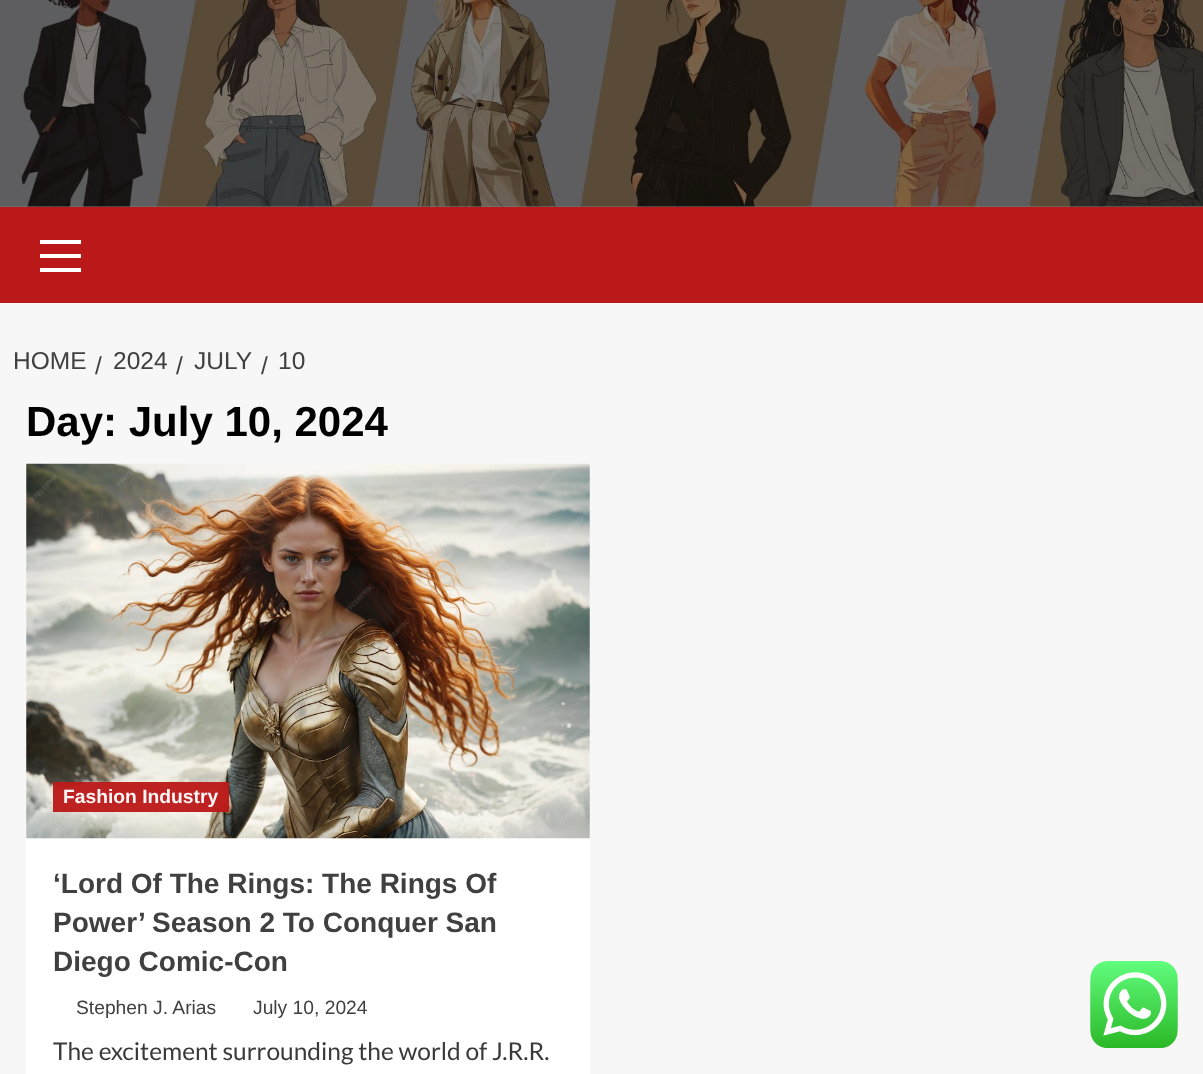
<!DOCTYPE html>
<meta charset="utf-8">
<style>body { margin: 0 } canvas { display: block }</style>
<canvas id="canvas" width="1203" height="1074"></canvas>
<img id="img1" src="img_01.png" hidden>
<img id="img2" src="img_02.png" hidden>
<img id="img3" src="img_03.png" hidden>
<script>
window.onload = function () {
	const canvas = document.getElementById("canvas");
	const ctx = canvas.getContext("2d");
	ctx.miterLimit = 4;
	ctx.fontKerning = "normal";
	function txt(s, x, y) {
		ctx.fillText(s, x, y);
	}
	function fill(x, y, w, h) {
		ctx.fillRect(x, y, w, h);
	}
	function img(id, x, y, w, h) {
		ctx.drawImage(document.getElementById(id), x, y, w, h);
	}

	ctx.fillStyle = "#F7F7F7";
	fill(0, 0, 1203, 1074);
	ctx.fillStyle = "#7C7C7C";
	fill(0, 206, 1203, 1);
	img("img1", 0, 0, 1203, 207);
	ctx.fillStyle = "#BB1919";
	fill(0, 207, 1203, 96);
	ctx.fillStyle = "#FFFFFF";
	fill(40, 254, 41, 4);
	fill(40, 240, 41, 4);
	fill(40, 268, 41, 4);
	fill(26, 464, 564, 610);
	img("img2", 26, 463, 564, 376);
	ctx.fillStyle = "rgba(187, 25, 25, 0.96)";
	fill(53, 782, 176, 30);
	img("img3", 1090, 961, 88, 87);
	ctx.font = "24.5px Liberation Sans";
	ctx.fillStyle = "#404040";
	txt("HOME", 13, 369);
	txt("/", 95, 374);
	txt("2024", 113, 369);
	txt("/", 176, 374);
	txt("JULY", 194, 369);
	txt("/", 261, 374);
	txt("10", 278, 369);
	ctx.font = "bold 42px Liberation Sans";
	ctx.fillStyle = "#000000";
	txt("Day: July 10, 2024", 26, 436);
	ctx.font = "bold 19.25px Liberation Sans";
	ctx.fillStyle = "#FCF6F6";
	txt("Fashion Industry", 63, 803);
	ctx.font = "bold 28px Liberation Sans";
	ctx.fillStyle = "#404040";
	txt("‘Lord Of The Rings: The Rings Of", 53, 893);
	txt("Power’ Season 2 To Conquer San", 53, 932);
	txt("Diego Comic-Con", 53, 971);
	ctx.font = "19.25px Liberation Sans";
	txt("Stephen J. Arias", 76, 1014);
	txt("July 10, 2024", 253, 1014);
	ctx.font = "24.5px Lato";
	ctx.fillStyle = "#3A3A3A";
	txt("The excitement surrounding the world of J.R.R.", 53, 1060);
};
</script>
